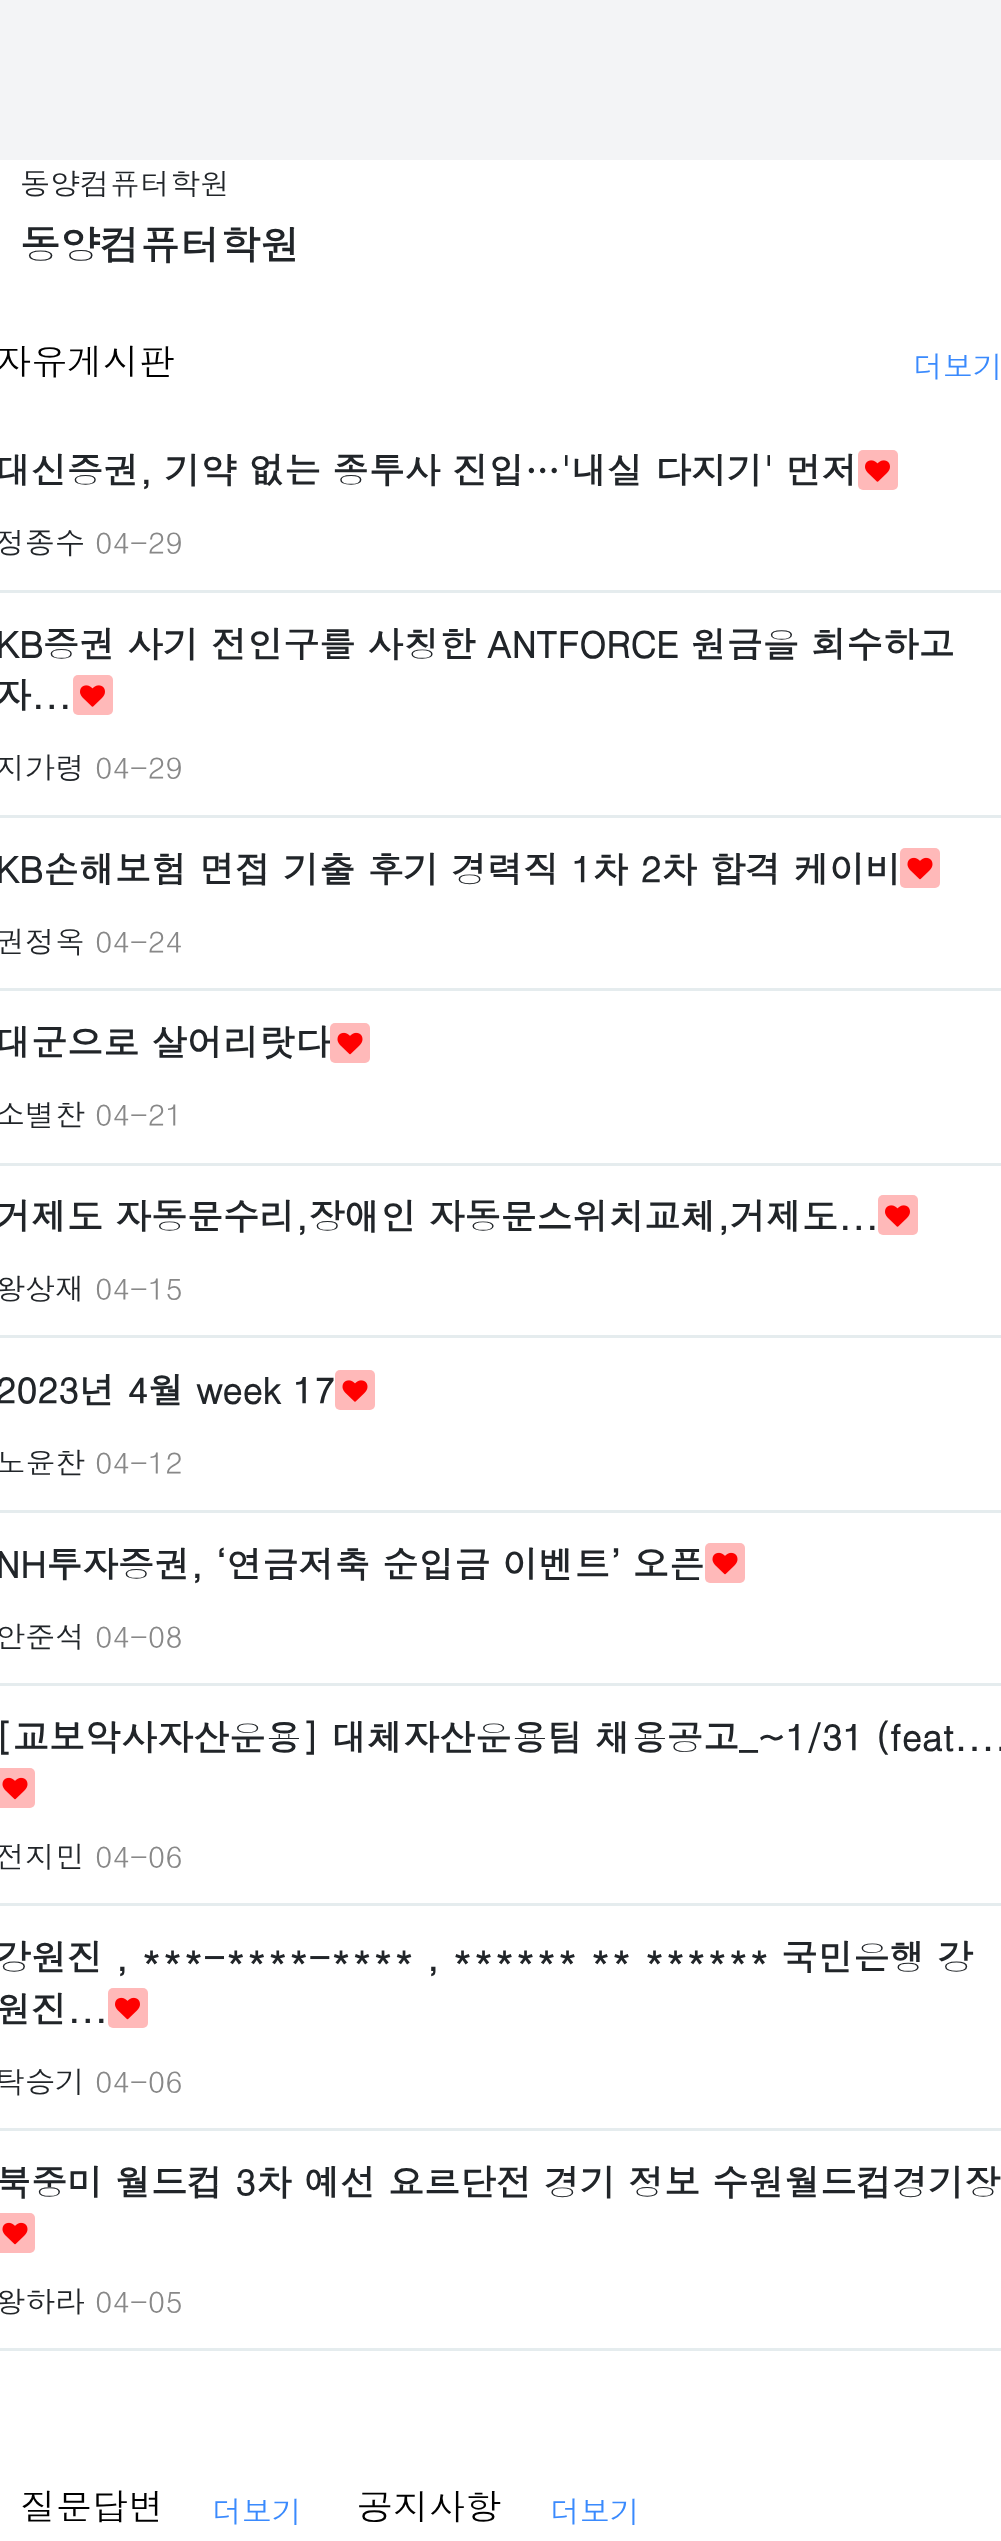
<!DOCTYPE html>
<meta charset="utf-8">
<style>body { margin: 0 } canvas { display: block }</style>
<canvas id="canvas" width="1001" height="2541"></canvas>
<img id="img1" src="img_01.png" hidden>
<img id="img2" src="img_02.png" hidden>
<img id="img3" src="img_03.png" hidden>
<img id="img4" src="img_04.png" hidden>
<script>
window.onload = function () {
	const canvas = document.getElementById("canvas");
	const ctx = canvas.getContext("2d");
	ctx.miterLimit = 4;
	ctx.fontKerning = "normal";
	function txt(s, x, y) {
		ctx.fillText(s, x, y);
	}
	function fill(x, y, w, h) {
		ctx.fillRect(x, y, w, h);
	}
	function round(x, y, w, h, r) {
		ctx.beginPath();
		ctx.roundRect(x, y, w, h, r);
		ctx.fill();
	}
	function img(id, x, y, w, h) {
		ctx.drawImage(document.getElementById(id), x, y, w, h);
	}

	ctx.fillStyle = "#FFFFFF";
	fill(0, 0, 1001, 2541);
	ctx.fillStyle = "#F3F4F6";
	fill(0, 0, 1001, 160);
	ctx.fillStyle = "#E5ECEE";
	fill(0, 590, 1001, 3);
	ctx.fillStyle = "#FFB9B9";
	round(858, 450, 40, 40, 5);
	img("img1", 865, 460, 25, 22);
	ctx.fillStyle = "#E5ECEE";
	fill(0, 815, 1001, 3);
	ctx.fillStyle = "#FFB9B9";
	round(73, 675, 40, 40, 5);
	img("img1", 80, 685, 25, 22);
	ctx.fillStyle = "#E5ECEE";
	fill(0, 988, 1001, 3);
	ctx.fillStyle = "#FFB9B9";
	round(900, 848, 40, 40, 5);
	img("img2", 907, 857, 26, 23);
	ctx.fillStyle = "#E5ECEE";
	fill(0, 1163, 1001, 3);
	fill(0, 1335, 1001, 3);
	ctx.fillStyle = "#FFB9B9";
	round(878, 1195, 40, 40, 5);
	img("img1", 885, 1205, 25, 22);
	ctx.fillStyle = "#E5ECEE";
	fill(0, 1510, 1001, 3);
	ctx.fillStyle = "#FFB9B9";
	round(335, 1370, 40, 40, 5);
	img("img3", 342, 1380, 26, 22);
	ctx.fillStyle = "#E5ECEE";
	fill(0, 1683, 1001, 3);
	ctx.fillStyle = "#FFB9B9";
	round(705, 1543, 40, 40, 5);
	img("img2", 712, 1552, 26, 23);
	ctx.fillStyle = "#E5ECEE";
	fill(0, 1903, 1001, 3);
	ctx.fillStyle = "#FFB9B9";
	round(-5, 1768, 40, 40, 5);
	img("img2", 2, 1777, 26, 23);
	ctx.fillStyle = "#E5ECEE";
	fill(0, 2128, 1001, 3);
	ctx.fillStyle = "#FFB9B9";
	round(108, 1988, 40, 40, 5);
	img("img4", 115, 1997, 25, 23);
	ctx.fillStyle = "#E5ECEE";
	fill(0, 2348, 1001, 3);
	ctx.fillStyle = "#FFB9B9";
	round(-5, 2213, 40, 40, 5);
	img("img2", 2, 2222, 26, 23);
	ctx.font = "30px Dotum";
	ctx.fillStyle = "#212529";
	txt("동양컴퓨터학원", 20, 195);
	ctx.font = "bold 40px Dotum";
	txt("동양컴퓨터학원", 20, 260);
	ctx.font = "36px Dotum";
	ctx.fillStyle = "#000000";
	txt("자유게시판", -5, 375);
	ctx.font = "30px Dotum";
	ctx.fillStyle = "#3A8AFD";
	txt("더보기", 913, 378);
	ctx.font = "bold 36px Dotum";
	ctx.fillStyle = "#212529";
	txt("대신증권, 기약 없는 종투사 진입…'내실 다지기' 먼저", -5, 484);
	ctx.font = "30px Dotum";
	txt("정종수", -5, 554);
	ctx.fillStyle = "#888888";
	txt("04-29", 95, 554);
	ctx.font = "bold 36px Dotum";
	ctx.fillStyle = "#212529";
	txt("KB증권 사기 전인구를 사칭한 ANTFORCE 원금을 회수하고", -5, 658);
	txt("자...", -5, 709);
	ctx.font = "30px Dotum";
	txt("지가령", -5, 779);
	ctx.fillStyle = "#888888";
	txt("04-29", 95, 779);
	ctx.font = "bold 36px Dotum";
	ctx.fillStyle = "#212529";
	txt("KB손해보험 면접 기출 후기 경력직 1차 2차 합격 케이비", -5, 883);
	ctx.font = "30px Dotum";
	txt("권정옥", -5, 953);
	ctx.fillStyle = "#888888";
	txt("04-24", 95, 953);
	ctx.font = "bold 36px Dotum";
	ctx.fillStyle = "#212529";
	txt("대군으로 살어리랏다", -5, 1056);
	ctx.fillStyle = "#FFB9B9";
	round(330, 1023, 40, 40, 5);
	img("img2", 337, 1032, 26, 23);
	ctx.font = "30px Dotum";
	ctx.fillStyle = "#212529";
	txt("소별찬", -5, 1126);
	ctx.fillStyle = "#888888";
	txt("04-21", 95, 1126);
	ctx.font = "bold 36px Dotum";
	ctx.fillStyle = "#212529";
	txt("거제도 자동문수리,장애인 자동문스위치교체,거제도...", -5, 1230);
	ctx.font = "30px Dotum";
	txt("왕상재", -5, 1300);
	ctx.fillStyle = "#888888";
	txt("04-15", 95, 1300);
	ctx.font = "bold 36px Dotum";
	ctx.fillStyle = "#212529";
	txt("2023년 4월 week 17", -5, 1404);
	ctx.font = "30px Dotum";
	txt("노윤찬", -5, 1474);
	ctx.fillStyle = "#888888";
	txt("04-12", 95, 1474);
	ctx.font = "bold 36px Dotum";
	ctx.fillStyle = "#212529";
	txt("NH투자증권, ‘연금저축 순입금 이벤트’ 오픈", -5, 1578);
	ctx.font = "30px Dotum";
	txt("안준석", -5, 1648);
	ctx.fillStyle = "#888888";
	txt("04-08", 95, 1648);
	ctx.font = "bold 36px Dotum";
	ctx.fillStyle = "#212529";
	txt("[교보악사자산운용] 대체자산운용팀 채용공고_~1/31 (feat....", -5, 1751);
	ctx.font = "30px Dotum";
	txt("전지민", -5, 1868);
	ctx.fillStyle = "#888888";
	txt("04-06", 95, 1868);
	ctx.font = "bold 36px Dotum";
	ctx.fillStyle = "#212529";
	txt("강원진 , ***-****-**** , ****** ** ****** 국민은행 강", -5, 1971);
	txt("원진...", -5, 2023);
	ctx.font = "30px Dotum";
	txt("탁승기", -5, 2093);
	ctx.fillStyle = "#888888";
	txt("04-06", 95, 2093);
	ctx.font = "bold 36px Dotum";
	ctx.fillStyle = "#212529";
	txt("북중미 월드컵 3차 예선 요르단전 경기 정보 수원월드컵경기장", -5, 2196);
	ctx.font = "30px Dotum";
	txt("왕하라", -5, 2313);
	ctx.fillStyle = "#888888";
	txt("04-05", 95, 2313);
	ctx.font = "36px Dotum";
	ctx.fillStyle = "#000000";
	txt("질문답변", 20, 2520);
	ctx.font = "30px Dotum";
	ctx.fillStyle = "#3A8AFD";
	txt("더보기", 212, 2523);
	ctx.font = "36px Dotum";
	ctx.fillStyle = "#000000";
	txt("공지사항", 357, 2520);
	ctx.font = "30px Dotum";
	ctx.fillStyle = "#3A8AFD";
	txt("더보기", 550, 2523);
};
</script>
